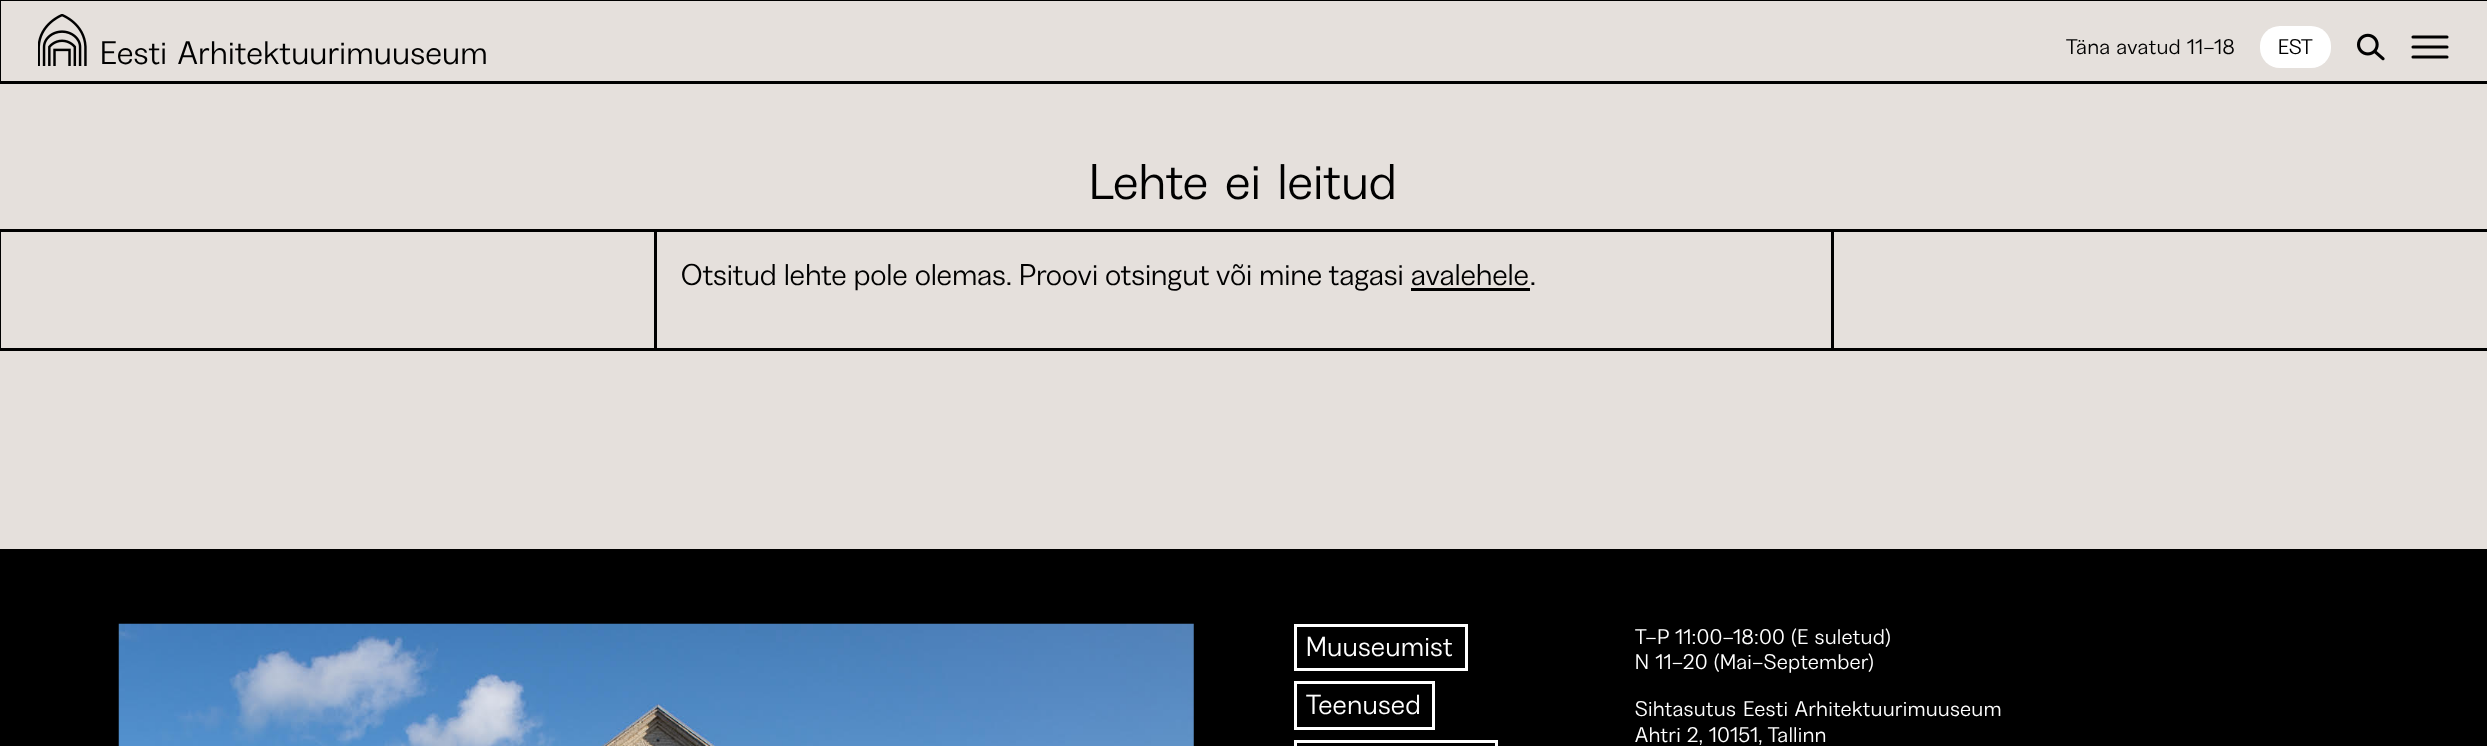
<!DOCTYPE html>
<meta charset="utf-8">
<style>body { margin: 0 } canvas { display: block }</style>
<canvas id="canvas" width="2487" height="746"></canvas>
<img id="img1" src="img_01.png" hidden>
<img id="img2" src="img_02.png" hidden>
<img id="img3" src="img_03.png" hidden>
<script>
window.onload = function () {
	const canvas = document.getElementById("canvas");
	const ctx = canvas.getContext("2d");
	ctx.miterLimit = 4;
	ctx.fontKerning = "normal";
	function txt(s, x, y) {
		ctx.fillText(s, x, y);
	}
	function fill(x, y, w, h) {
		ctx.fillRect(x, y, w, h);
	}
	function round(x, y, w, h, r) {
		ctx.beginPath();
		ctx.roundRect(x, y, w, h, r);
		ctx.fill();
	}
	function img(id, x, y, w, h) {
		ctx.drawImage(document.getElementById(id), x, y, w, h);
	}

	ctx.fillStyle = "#E5E0DC";
	fill(0, 0, 2487, 746);
	img("img1", 38, 14, 49, 52);
	ctx.strokeStyle = "#000000";
	ctx.lineWidth = 3;
	ctx.strokeRect(-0.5, -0.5, 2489, 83);
	ctx.fillStyle = "#FFFFFF";
	round(2260, 26, 71, 42, 20);
	img("img2", 2357, 33, 28, 28);
	ctx.beginPath();
	ctx.moveTo(2413, 37);
	ctx.lineTo(2447, 37);
	ctx.moveTo(2413, 47);
	ctx.lineTo(2447, 47);
	ctx.moveTo(2413, 57);
	ctx.lineTo(2447, 57);
	ctx.lineWidth = 3.1;
	ctx.lineCap = "round";
	ctx.stroke();
	ctx.fillStyle = "#000000";
	fill(1411, 288, 119, 3);
	ctx.lineWidth = 3;
	ctx.strokeRect(655.5, 230.5, 1177, 119);
	ctx.strokeRect(-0.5, 230.5, 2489, 119);
	fill(0, 549, 2487, 197);
	img("img3", 118, 623, 1076, 123);
	ctx.strokeStyle = "#FFFFFF";
	ctx.strokeRect(1295.5, 625.5, 171, 44);
	ctx.strokeRect(1295.5, 682.5, 138, 46);
	ctx.strokeRect(1295.5, 741.5, 201, 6);
	ctx.letterSpacing = "0.65px";
	ctx.wordSpacing = "4px";
	ctx.font = "32.5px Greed";
	txt("Eesti Arhitektuurimuuseum", 100, 64);
	ctx.wordSpacing = "1px";
	ctx.font = "21.25px Greed";
	txt("Täna avatud 11–18", 2066, 54);
	ctx.letterSpacing = "0px";
	ctx.wordSpacing = "0px";
	txt("EST", 2278, 54);
	ctx.letterSpacing = "0.65px";
	ctx.wordSpacing = "6px";
	ctx.font = "50px Greed";
	txt("Lehte ei leitud", 1089, 199);
	ctx.letterSpacing = "0.3px";
	ctx.wordSpacing = "0.75px";
	ctx.font = "30px Greed";
	txt("Otsitud lehte pole olemas. Proovi otsingut või mine tagasi", 681, 285);
	ctx.wordSpacing = "0px";
	txt("avalehele", 1411, 285);
	txt(".", 1530, 285);
	ctx.letterSpacing = "0.65px";
	ctx.font = "27.5px Greed";
	ctx.fillStyle = "#FFFFFF";
	txt("Muuseumist", 1306, 656);
	txt("Teenused", 1306, 714);
	ctx.wordSpacing = "1px";
	ctx.font = "21.25px Greed";
	txt("T–P 11:00–18:00 (E suletud)", 1635, 644);
	txt("N 11–20 (Mai–September)", 1635, 669);
	ctx.wordSpacing = "2px";
	txt("Sihtasutus Eesti Arhitektuurimuuseum", 1635, 716);
	ctx.wordSpacing = "1px";
	txt("Ahtri 2, 10151, Tallinn", 1635, 742);
};
</script>
